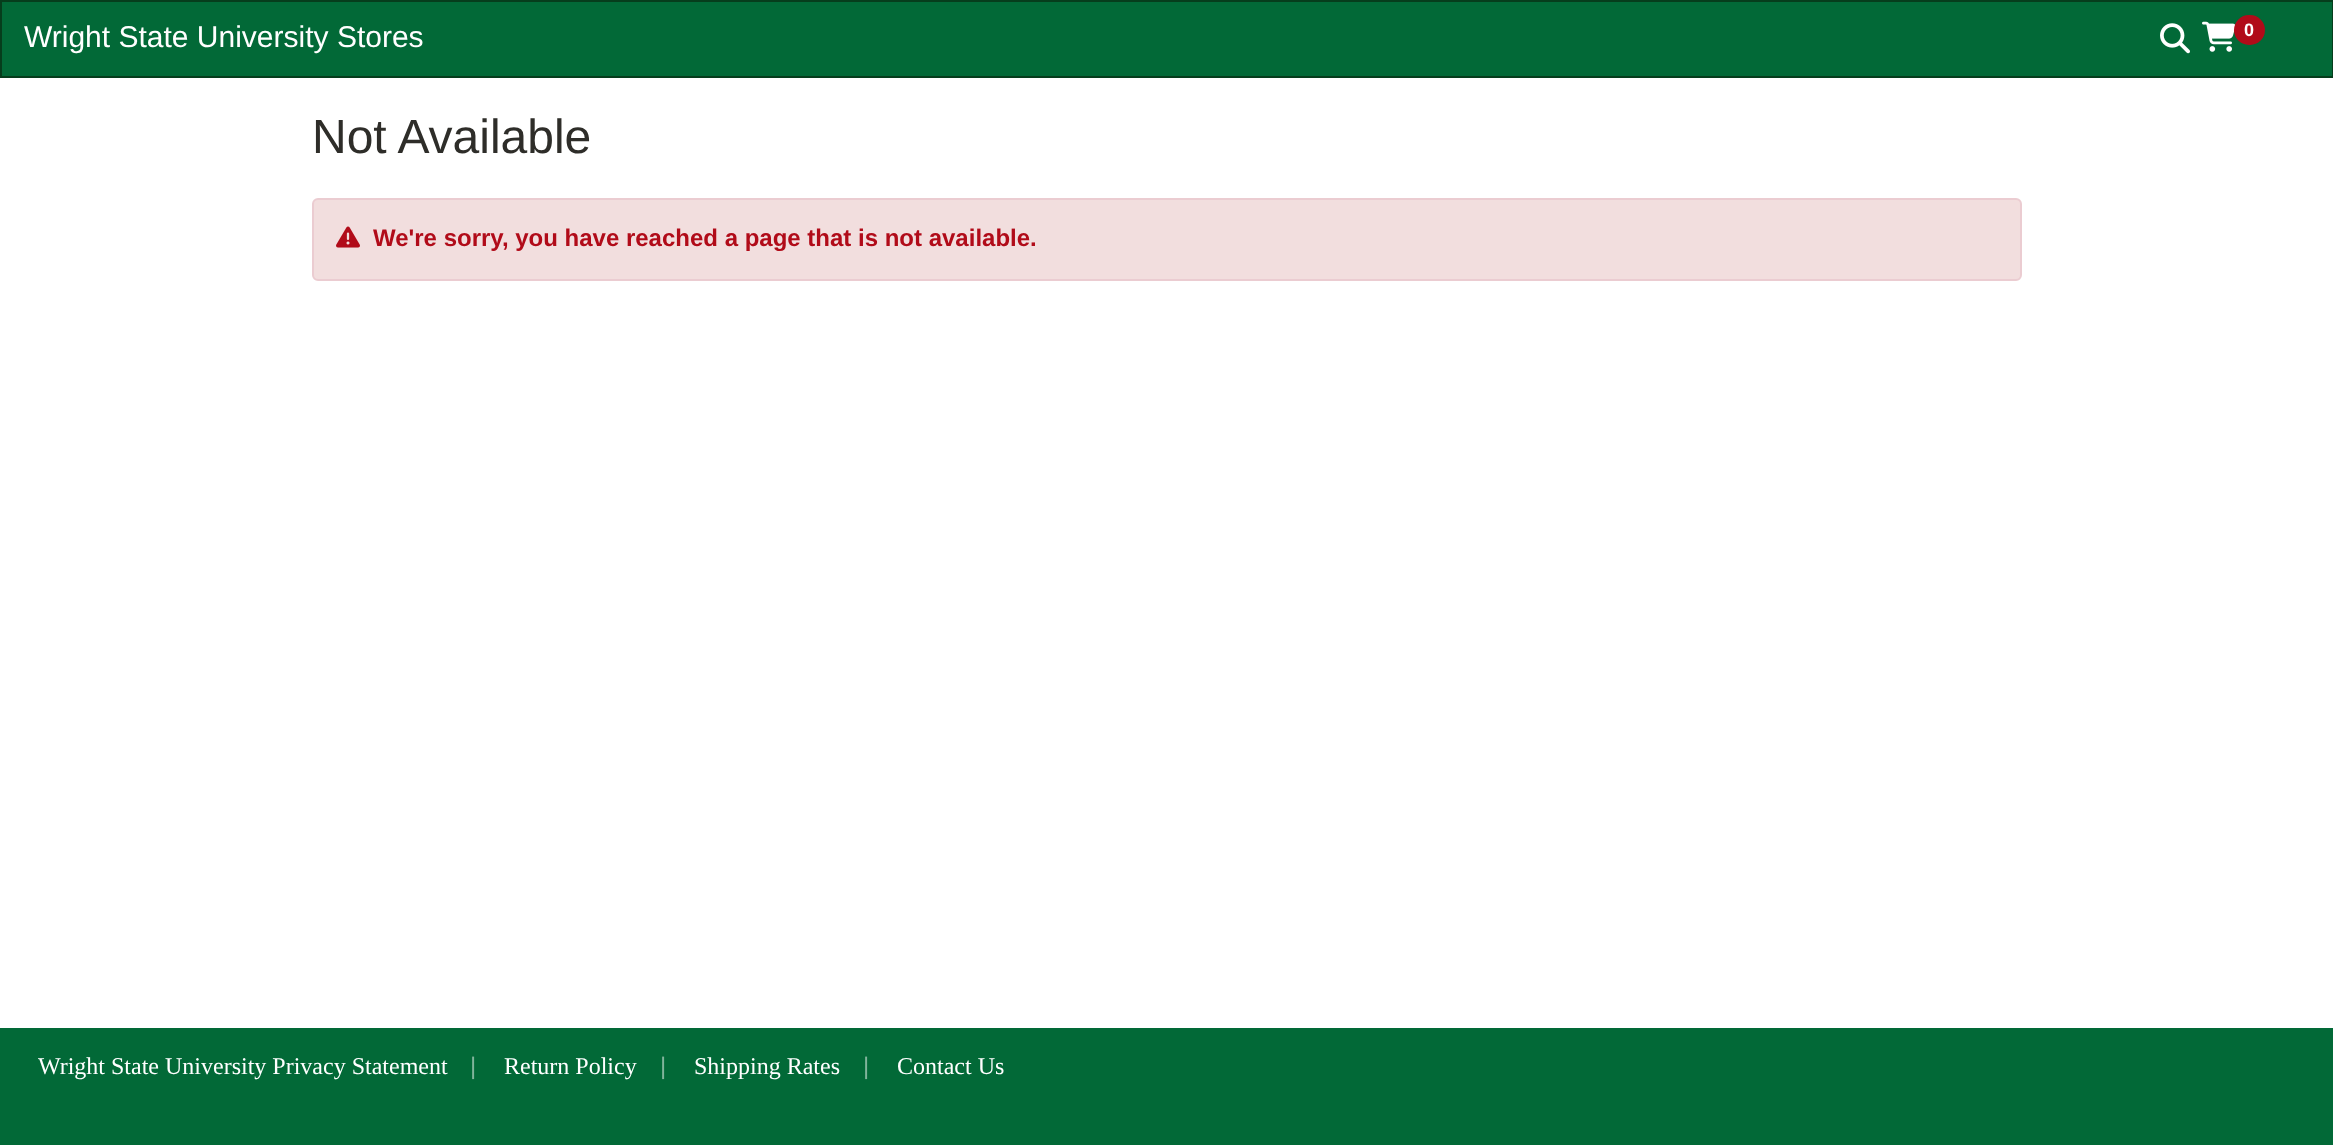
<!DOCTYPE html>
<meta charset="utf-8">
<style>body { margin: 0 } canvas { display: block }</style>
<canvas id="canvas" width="2333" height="1145"></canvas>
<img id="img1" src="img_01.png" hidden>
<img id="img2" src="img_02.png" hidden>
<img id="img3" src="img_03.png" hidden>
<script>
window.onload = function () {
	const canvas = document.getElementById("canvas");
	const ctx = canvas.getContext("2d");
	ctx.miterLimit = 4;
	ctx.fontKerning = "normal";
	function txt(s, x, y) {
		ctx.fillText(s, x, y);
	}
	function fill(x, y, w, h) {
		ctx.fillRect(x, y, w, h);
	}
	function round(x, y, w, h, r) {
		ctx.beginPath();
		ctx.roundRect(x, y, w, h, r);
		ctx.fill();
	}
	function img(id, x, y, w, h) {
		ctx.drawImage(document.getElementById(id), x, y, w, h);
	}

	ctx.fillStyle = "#FFFFFF";
	fill(0, 0, 2333, 1145);
	ctx.fillStyle = "#026937";
	ctx.beginPath();
	ctx.rect(1, 1, 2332, 76);
	ctx.fill();
	ctx.strokeStyle = "#063D1C";
	ctx.lineWidth = 2;
	ctx.stroke();
	img("img1", 2160, 23, 30, 31);
	img("img2", 2202, 21, 34, 31);
	ctx.fillStyle = "#B10B19";
	round(2234, 15, 31, 30, 15);
	ctx.fillStyle = "#F2DEDE";
	ctx.beginPath();
	ctx.roundRect(313, 199, 1708, 81, 5);
	ctx.fill();
	ctx.strokeStyle = "#EBCCD1";
	ctx.stroke();
	img("img3", 336, 226, 24, 22);
	ctx.fillStyle = "#026937";
	fill(0, 1028, 2333, 117);
	ctx.font = "30px Liberation Sans";
	ctx.fillStyle = "#FFFFFF";
	txt("Wright State University Stores", 24, 47);
	ctx.font = "bold 18px Liberation Sans";
	txt("0", 2244, 36);
	ctx.font = "48px Liberation Sans";
	ctx.fillStyle = "#2E2D29";
	txt("Not Available", 312, 153);
	ctx.font = "bold 24px Liberation Sans";
	ctx.fillStyle = "#B10B19";
	txt("We're sorry, you have reached a page that is not available.", 373, 246);
	ctx.font = "24px Liberation Serif";
	ctx.fillStyle = "#FFFFFF";
	txt("Wright State University Privacy Statement", 38, 1074);
	ctx.font = "24px Liberation Sans";
	ctx.fillStyle = "#81B49B";
	txt("|", 470, 1074);
	ctx.font = "24px Liberation Serif";
	ctx.fillStyle = "#FFFFFF";
	txt("Return Policy", 504, 1074);
	ctx.font = "24px Liberation Sans";
	ctx.fillStyle = "#81B49B";
	txt("|", 660, 1074);
	ctx.font = "24px Liberation Serif";
	ctx.fillStyle = "#FFFFFF";
	txt("Shipping Rates", 694, 1074);
	ctx.font = "24px Liberation Sans";
	ctx.fillStyle = "#81B49B";
	txt("|", 863, 1074);
	ctx.font = "24px Liberation Serif";
	ctx.fillStyle = "#FFFFFF";
	txt("Contact Us", 897, 1074);
};
</script>
